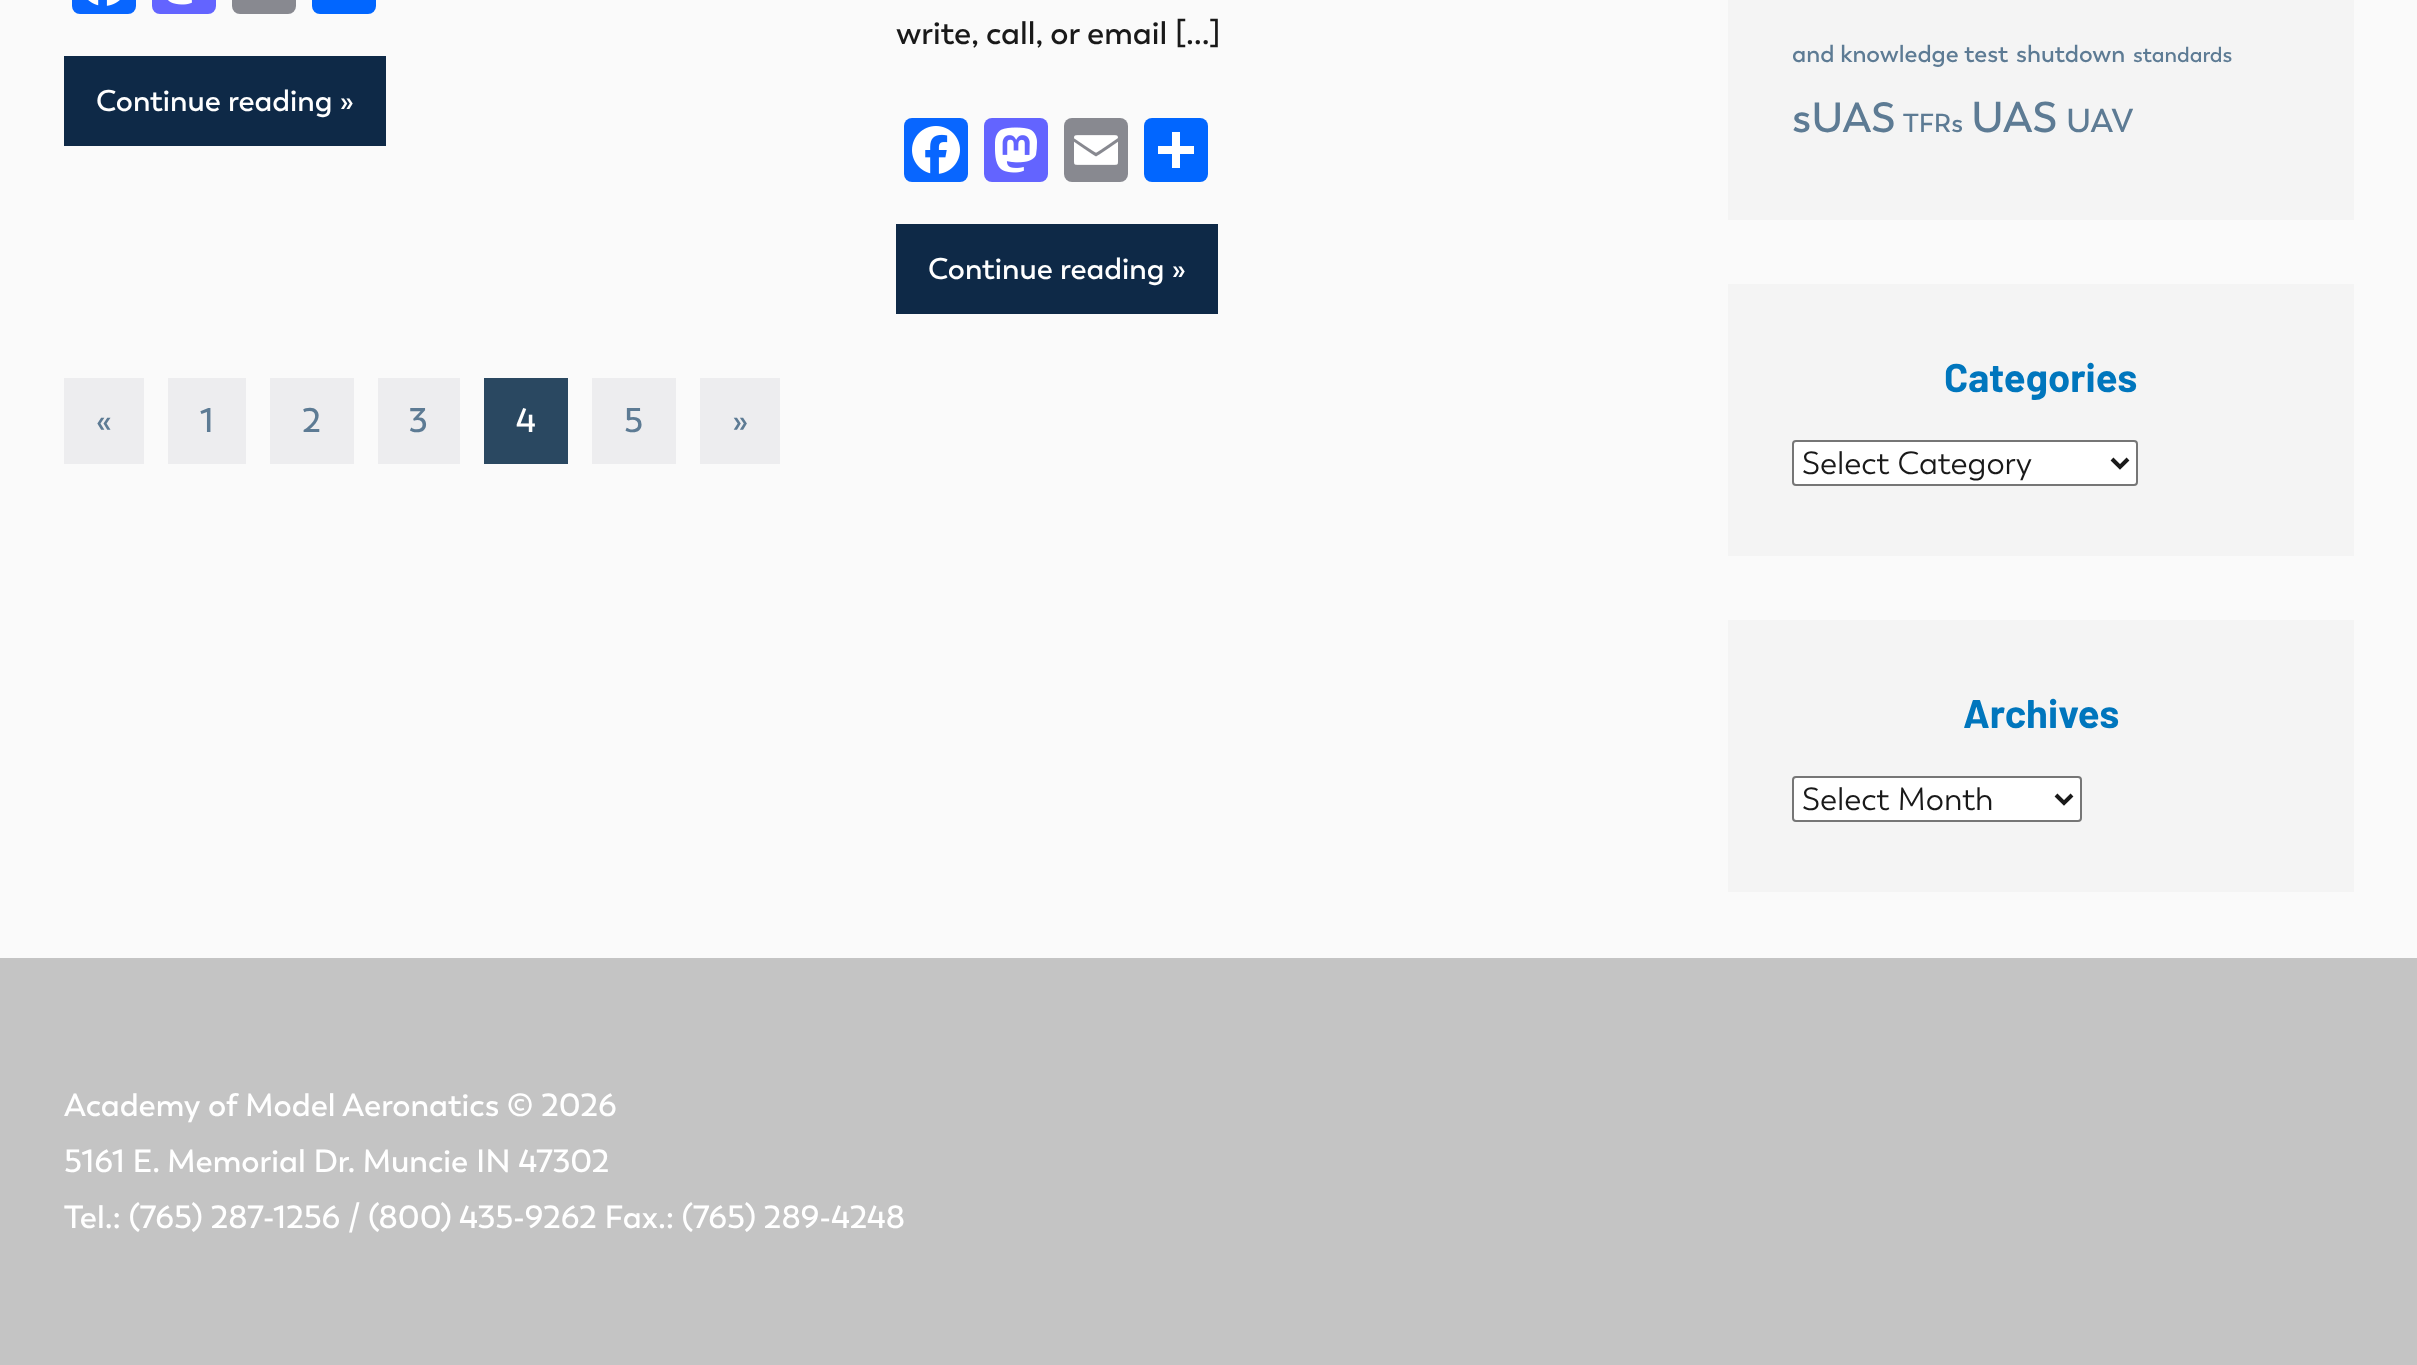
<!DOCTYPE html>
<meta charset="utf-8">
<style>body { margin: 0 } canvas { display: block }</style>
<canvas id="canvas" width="2417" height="1365"></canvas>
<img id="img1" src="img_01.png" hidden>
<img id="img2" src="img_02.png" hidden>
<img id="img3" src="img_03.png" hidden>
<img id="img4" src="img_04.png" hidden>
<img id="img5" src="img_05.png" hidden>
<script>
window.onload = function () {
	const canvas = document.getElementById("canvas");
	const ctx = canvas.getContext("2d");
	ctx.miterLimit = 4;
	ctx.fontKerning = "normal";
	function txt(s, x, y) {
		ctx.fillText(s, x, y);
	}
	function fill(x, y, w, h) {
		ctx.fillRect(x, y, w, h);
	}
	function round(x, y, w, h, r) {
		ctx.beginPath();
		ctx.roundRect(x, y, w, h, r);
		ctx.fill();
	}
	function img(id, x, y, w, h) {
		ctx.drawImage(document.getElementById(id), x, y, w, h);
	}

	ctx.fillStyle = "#FAFAFA";
	fill(0, 0, 2417, 1365);
	ctx.fillStyle = "#0866FF";
	round(72, -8, 64, 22, 8);
	img("img1", 88, 0, 32, 6);
	ctx.fillStyle = "#6364FF";
	round(152, -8, 64, 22, 8);
	img("img2", 168, 0, 24, 5);
	ctx.fillStyle = "#888990";
	round(232, -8, 64, 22, 8);
	ctx.fillStyle = "#0166FF";
	round(312, -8, 64, 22, 8);
	ctx.fillStyle = "#0E2947";
	fill(64, 56, 322, 90);
	ctx.fillStyle = "#0866FF";
	round(904, 118, 64, 64, 8);
	img("img3", 912, 126, 48, 48);
	ctx.fillStyle = "#6364FF";
	round(984, 118, 64, 64, 8);
	img("img4", 995, 127, 42, 46);
	ctx.fillStyle = "#888990";
	round(1064, 118, 64, 64, 8);
	img("img5", 1074, 135, 44, 30);
	ctx.fillStyle = "#0166FF";
	round(1144, 118, 64, 64, 8);
	ctx.fillStyle = "#FFFFFF";
	fill(1172, 132, 8, 36);
	fill(1158, 146, 36, 8);
	ctx.fillStyle = "#0E2947";
	fill(896, 224, 322, 90);
	ctx.fillStyle = "#EDEDEF";
	fill(64, 378, 80, 86);
	fill(168, 378, 78, 86);
	fill(270, 378, 84, 86);
	fill(378, 378, 82, 86);
	ctx.fillStyle = "#2A4861";
	fill(484, 378, 84, 86);
	ctx.fillStyle = "#EDEDEF";
	fill(592, 378, 84, 86);
	fill(700, 378, 80, 86);
	ctx.fillStyle = "#F4F4F4";
	fill(1728, 0, 626, 220);
	fill(1728, 284, 626, 272);
	ctx.fillStyle = "#FFFFFF";
	ctx.beginPath();
	ctx.roundRect(1793, 441, 344, 44, 3);
	ctx.fill();
	ctx.strokeStyle = "#767676";
	ctx.lineWidth = 2;
	ctx.stroke();
	ctx.beginPath();
	ctx.moveTo(2112, 459);
	ctx.lineTo(2120, 467);
	ctx.lineTo(2128, 459);
	ctx.strokeStyle = "#1A1A1A";
	ctx.lineWidth = 4;
	ctx.stroke();
	ctx.fillStyle = "#F4F4F4";
	fill(1728, 620, 626, 272);
	ctx.fillStyle = "#FFFFFF";
	ctx.beginPath();
	ctx.roundRect(1793, 777, 288, 44, 3);
	ctx.fill();
	ctx.strokeStyle = "#767676";
	ctx.lineWidth = 2;
	ctx.stroke();
	ctx.beginPath();
	ctx.moveTo(2056, 795);
	ctx.lineTo(2064, 803);
	ctx.lineTo(2072, 795);
	ctx.strokeStyle = "#1A1A1A";
	ctx.lineWidth = 4;
	ctx.stroke();
	ctx.fillStyle = "#C4C4C4";
	fill(0, 958, 2417, 407);
	ctx.font = "600 30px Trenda";
	ctx.fillStyle = "#FFFFFF";
	txt("Continue reading »", 96, 111);
	ctx.font = "600 32px Trenda";
	ctx.fillStyle = "#191919";
	txt("write, call, or email […]", 896, 44);
	ctx.font = "600 30px Trenda";
	ctx.fillStyle = "#FFFFFF";
	txt("Continue reading »", 928, 279);
	ctx.font = "600 34px Trenda";
	ctx.fillStyle = "#5D7B94";
	txt("«", 96, 432);
	txt("1", 200, 432);
	txt("2", 302, 432);
	txt("3", 409, 432);
	ctx.fillStyle = "#FFFFFF";
	txt("4", 516, 432);
	ctx.fillStyle = "#5D7B94";
	txt("5", 624, 432);
	txt("»", 732, 432);
	ctx.font = "600 24px Trenda";
	txt("and knowledge test", 1792, 62);
	txt("shutdown", 2016, 62);
	ctx.font = "600 21.5px Trenda";
	txt("standards", 2133, 62);
	ctx.font = "600 42px Trenda";
	txt("sUAS", 1792, 132);
	ctx.font = "600 26px Trenda";
	txt("TFRs", 1903, 132);
	ctx.font = "600 43px Trenda";
	txt("UAS", 1971, 132);
	ctx.font = "600 33px Trenda";
	txt("UAV", 2066, 132);
	ctx.font = "bold 40px Barlow";
	ctx.fillStyle = "#0076BD";
	txt("Categories", 1944, 392);
	ctx.font = "32px Trenda";
	ctx.fillStyle = "#191919";
	txt("Select Category", 1802, 474);
	ctx.font = "bold 40px Barlow";
	ctx.fillStyle = "#0076BD";
	txt("Archives", 1963, 728);
	ctx.font = "32px Trenda";
	ctx.fillStyle = "#191919";
	txt("Select Month", 1802, 810);
	ctx.font = "600 32px Trenda";
	ctx.fillStyle = "#FFFFFF";
	txt("Academy of Model Aeronatics © 2026", 64, 1116);
	txt("5161 E. Memorial Dr. Muncie IN 47302", 64, 1172);
	txt("Tel.: (765) 287-1256 / (800) 435-9262 Fax.: (765) 289-4248", 64, 1228);
};
</script>
